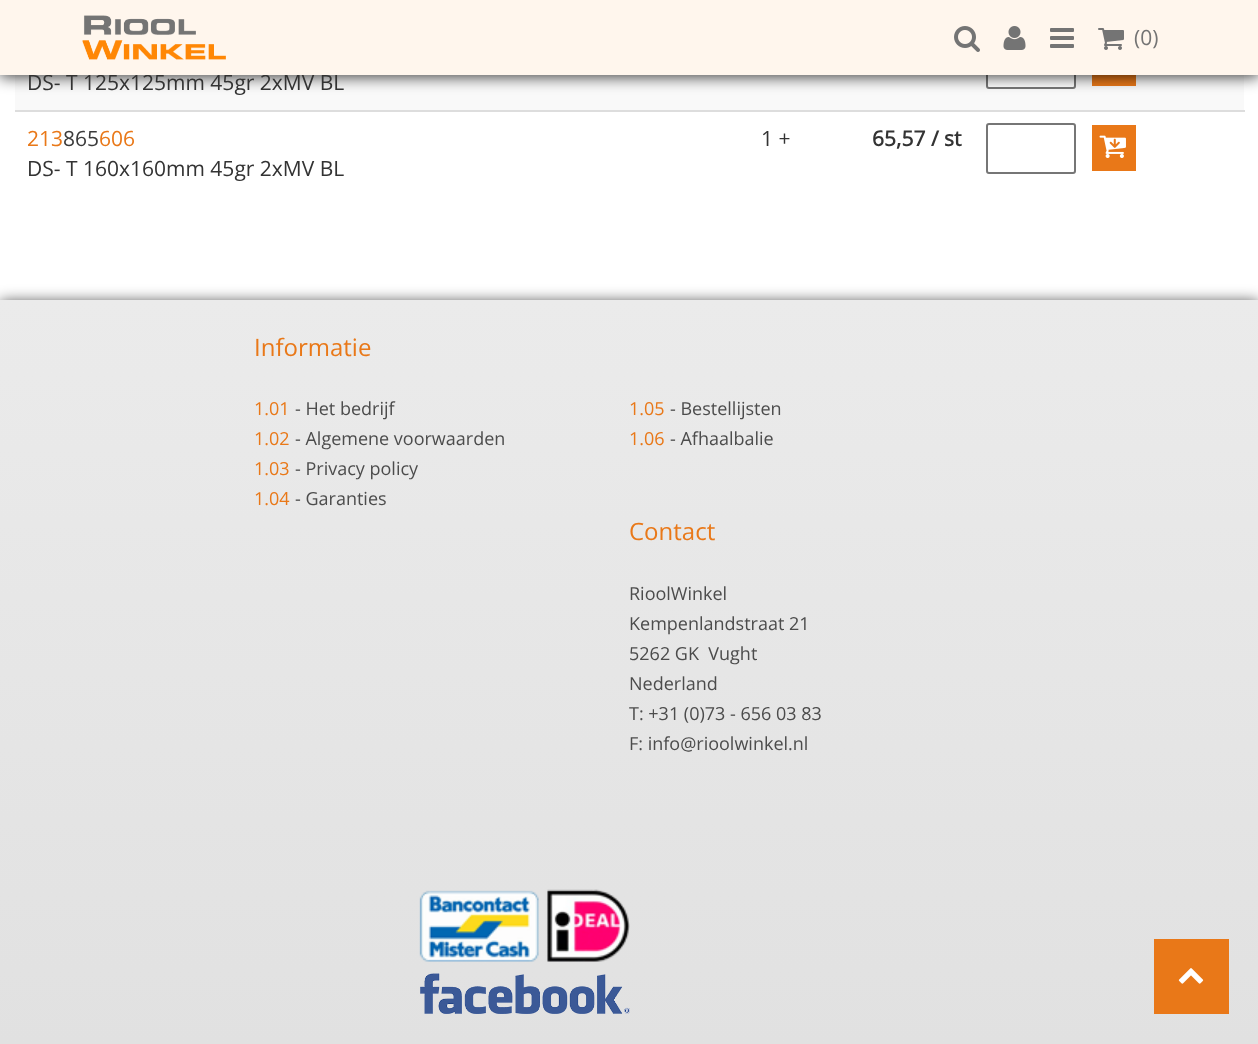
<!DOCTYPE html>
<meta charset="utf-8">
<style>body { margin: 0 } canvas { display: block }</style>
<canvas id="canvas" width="1258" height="1044"></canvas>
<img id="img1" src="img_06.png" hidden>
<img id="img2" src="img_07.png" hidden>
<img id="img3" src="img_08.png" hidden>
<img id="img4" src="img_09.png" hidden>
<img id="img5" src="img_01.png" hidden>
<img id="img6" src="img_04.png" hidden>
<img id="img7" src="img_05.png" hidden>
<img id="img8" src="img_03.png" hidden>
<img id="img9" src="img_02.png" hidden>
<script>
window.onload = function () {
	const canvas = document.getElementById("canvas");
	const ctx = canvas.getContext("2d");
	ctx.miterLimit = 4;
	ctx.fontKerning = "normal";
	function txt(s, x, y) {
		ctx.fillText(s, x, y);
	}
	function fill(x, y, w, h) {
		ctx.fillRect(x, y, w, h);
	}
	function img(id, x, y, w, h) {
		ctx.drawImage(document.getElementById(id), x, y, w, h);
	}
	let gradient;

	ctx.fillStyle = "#FFFFFF";
	fill(0, 0, 1258, 1044);
	ctx.fillStyle = "#F9F9F9";
	fill(15, 75, 1229, 35);
	ctx.fillStyle = "#FFFFFF";
	ctx.beginPath();
	ctx.roundRect(987, 39, 88, 49, 2);
	ctx.fill();
	ctx.strokeStyle = "#767676";
	ctx.lineWidth = 2;
	ctx.stroke();
	ctx.fillStyle = "#E97818";
	fill(1092, 75, 44, 11);
	ctx.fillStyle = "rgba(0, 0, 0, 0.75)";
	ctx.filter = "blur(7.5px)";
	ctx.beginPath();
	ctx.rect(0, 2, 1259, 75);
	ctx.fill();
	ctx.filter = "none";
	ctx.fillStyle = "#DDDDDD";
	fill(15, 110, 1230, 2);
	ctx.beginPath();
	ctx.roundRect(987, 124, 88, 49, 2);
	ctx.stroke();
	ctx.fillStyle = "#E97818";
	fill(1092, 125, 44, 46);
	img("img1", 1099, 135, 27, 23);
	ctx.fillStyle = "rgba(0, 0, 0, 0.75)";
	ctx.filter = "blur(7.5px)";
	ctx.beginPath();
	ctx.rect(0, 302, 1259, 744);
	ctx.fill();
	ctx.filter = "none";
	gradient = ctx.createLinearGradient(629, 300, 629, 1044);
	gradient.addColorStop(0, "#EBEBEB");
	gradient.addColorStop(1, "#E1E1E1");
	ctx.fillStyle = gradient;
	fill(0, 300, 1258, 744);
	img("img2", 419, 889, 211, 73);
	img("img3", 420, 973, 210, 41);
	ctx.fillStyle = "#E97818";
	fill(1154, 939, 75, 75);
	img("img4", 1178, 968, 26, 16);
	ctx.font = "21px Open Sans";
	ctx.fillStyle = "#333333";
	txt("DS- T 125x125mm 45gr 2xMV BL", 27, 90);
	ctx.fillStyle = "#FFF6ED";
	fill(0, 0, 1258, 75);
	img("img5", 82, 15, 144, 45);
	img("img6", 1050, 28, 24, 20);
	img("img7", 1098, 28, 26, 22);
	ctx.fillStyle = "#747474";
	txt("(0)", 1134, 45);
	img("img8", 1003, 26, 23, 24);
	img("img9", 954, 26, 26, 26);
	ctx.fillStyle = "#E97818";
	txt("213", 27, 146);
	ctx.fillStyle = "#3B3B3B";
	txt("865", 63, 146);
	ctx.fillStyle = "#E97818";
	txt("606", 99, 146);
	ctx.fillStyle = "#333333";
	txt("DS- T 160x160mm 45gr 2xMV BL", 27, 176);
	txt("1 +", 761, 146);
	ctx.font = "bold 21px Open Sans";
	txt("65,57 / st", 872, 146);
	ctx.font = "24px Open Sans";
	ctx.fillStyle = "#E97818";
	txt("Informatie", 254, 356);
	ctx.font = "18px Open Sans";
	txt("1.01", 254, 415);
	ctx.fillStyle = "#4C4C4C";
	txt("- Het bedrijf", 295, 415);
	ctx.fillStyle = "#E97818";
	txt("1.02", 254, 445);
	ctx.fillStyle = "#4C4C4C";
	txt("- Algemene voorwaarden", 295, 445);
	ctx.fillStyle = "#E97818";
	txt("1.03", 254, 475);
	ctx.fillStyle = "#4C4C4C";
	txt("- Privacy policy", 295, 475);
	ctx.fillStyle = "#E97818";
	txt("1.04", 254, 505);
	ctx.fillStyle = "#4C4C4C";
	txt("- Garanties", 295, 505);
	ctx.fillStyle = "#E97818";
	txt("1.05", 629, 415);
	ctx.fillStyle = "#4C4C4C";
	txt("- Bestellijsten", 670, 415);
	ctx.fillStyle = "#E97818";
	txt("1.06", 629, 445);
	ctx.fillStyle = "#4C4C4C";
	txt("- Afhaalbalie", 670, 445);
	ctx.font = "24px Open Sans";
	ctx.fillStyle = "#E97818";
	txt("Contact", 629, 540);
	ctx.font = "18px Open Sans";
	ctx.fillStyle = "#4C4C4C";
	txt("RioolWinkel", 629, 600);
	txt("Kempenlandstraat 21", 629, 630);
	txt("5262 GK  Vught", 629, 660);
	txt("Nederland", 629, 690);
	txt("T: +31 (0)73 - 656 03 83", 629, 720);
	txt("F: info@rioolwinkel.nl", 629, 750);
};
</script>
